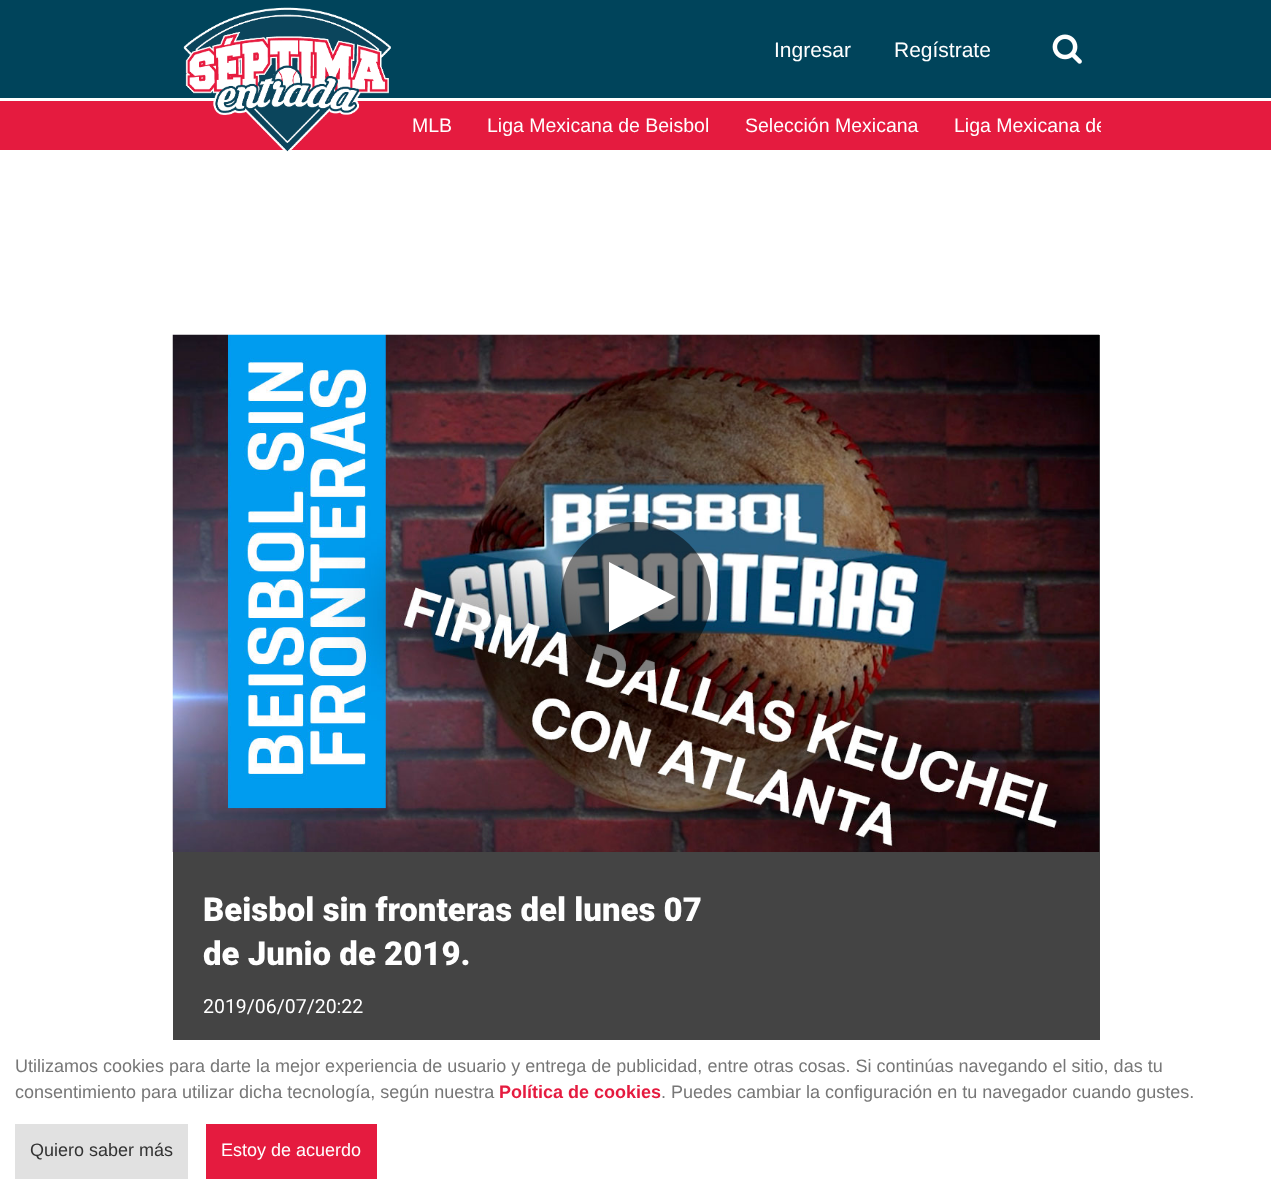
<!DOCTYPE html>
<meta charset="utf-8">
<style>body { margin: 0 } canvas { display: block }</style>
<canvas id="canvas" width="1271" height="1193"></canvas>
<img id="img1" src="img_01.png" hidden>
<img id="img2" src="img_02.png" hidden>
<img id="img3" src="img_03.png" hidden>
<script>
window.onload = function () {
	const canvas = document.getElementById("canvas");
	const ctx = canvas.getContext("2d");
	ctx.miterLimit = 4;
	ctx.fontKerning = "normal";
	function txt(s, x, y) {
		ctx.fillText(s, x, y);
	}
	function fill(x, y, w, h) {
		ctx.fillRect(x, y, w, h);
	}
	function img(id, x, y, w, h) {
		ctx.drawImage(document.getElementById(id), x, y, w, h);
	}

	ctx.fillStyle = "#FFFFFF";
	fill(0, 0, 1271, 1193);
	ctx.fillStyle = "#00445B";
	fill(0, 0, 1271, 98);
	ctx.fillStyle = "#E51B3F";
	fill(0, 101, 1271, 49);
	img("img1", 183, 7, 208, 145);
	img("img2", 1052, 34, 30, 30);
	ctx.fillStyle = "#444444";
	fill(173, 335, 927, 705);
	img("img3", 172, 334, 928, 518);
	ctx.fillStyle = "rgba(0, 0, 0, 0.5)";
	ctx.beginPath();
	ctx.arc(636, 597, 75, 0, Math.PI * 2);
	ctx.fill();
	ctx.fillStyle = "#FFFFFF";
	ctx.beginPath();
	ctx.moveTo(609, 632);
	ctx.lineTo(609, 562);
	ctx.lineTo(676, 597);
	ctx.closePath();
	ctx.fill();
	ctx.fillStyle = "#E1E1E1";
	fill(15, 1124, 173, 55);
	ctx.fillStyle = "#E51B3F";
	fill(206, 1124, 171, 55);
	ctx.font = "21px Liberation Sans";
	ctx.fillStyle = "#FFFFFF";
	txt("Ingresar", 774, 57);
	txt("Regístrate", 894, 57);
	ctx.font = "19.5px Liberation Sans";
	txt("MLB", 412, 132);
	txt("Liga Mexicana de Beisbol", 487, 132);
	txt("Selección Mexicana", 745, 132);
	ctx.save();
	ctx.beginPath();
	ctx.rect(413, 101, 688, 49);
	ctx.clip();
	txt("Liga Mexicana de", 954, 132);
	ctx.restore();
	ctx.font = "900 33px Roboto";
	txt("Beisbol sin fronteras del lunes 07", 203, 921);
	txt("de Junio de 2019.", 203, 965);
	ctx.font = "19.5px Roboto";
	txt("2019/06/07/20:22", 203, 1013);
	ctx.font = "18px Liberation Sans";
	ctx.fillStyle = "#777777";
	txt("Utilizamos cookies para darte la mejor experiencia de usuario y entrega de publicidad, entre otras cosas. Si continúas navegando el sitio, das tu", 15, 1072);
	txt("consentimiento para utilizar dicha tecnología, según nuestra", 15, 1098);
	ctx.font = "bold 18px Liberation Sans";
	ctx.fillStyle = "#E51B3F";
	txt("Política de cookies", 499, 1098);
	ctx.font = "18px Liberation Sans";
	ctx.fillStyle = "#777777";
	txt(". Puedes cambiar la configuración en tu navegador cuando gustes.", 661, 1098);
	ctx.fillStyle = "#333333";
	txt("Quiero saber más", 30, 1156);
	ctx.fillStyle = "#FFFFFF";
	txt("Estoy de acuerdo", 221, 1156);
};
</script>
